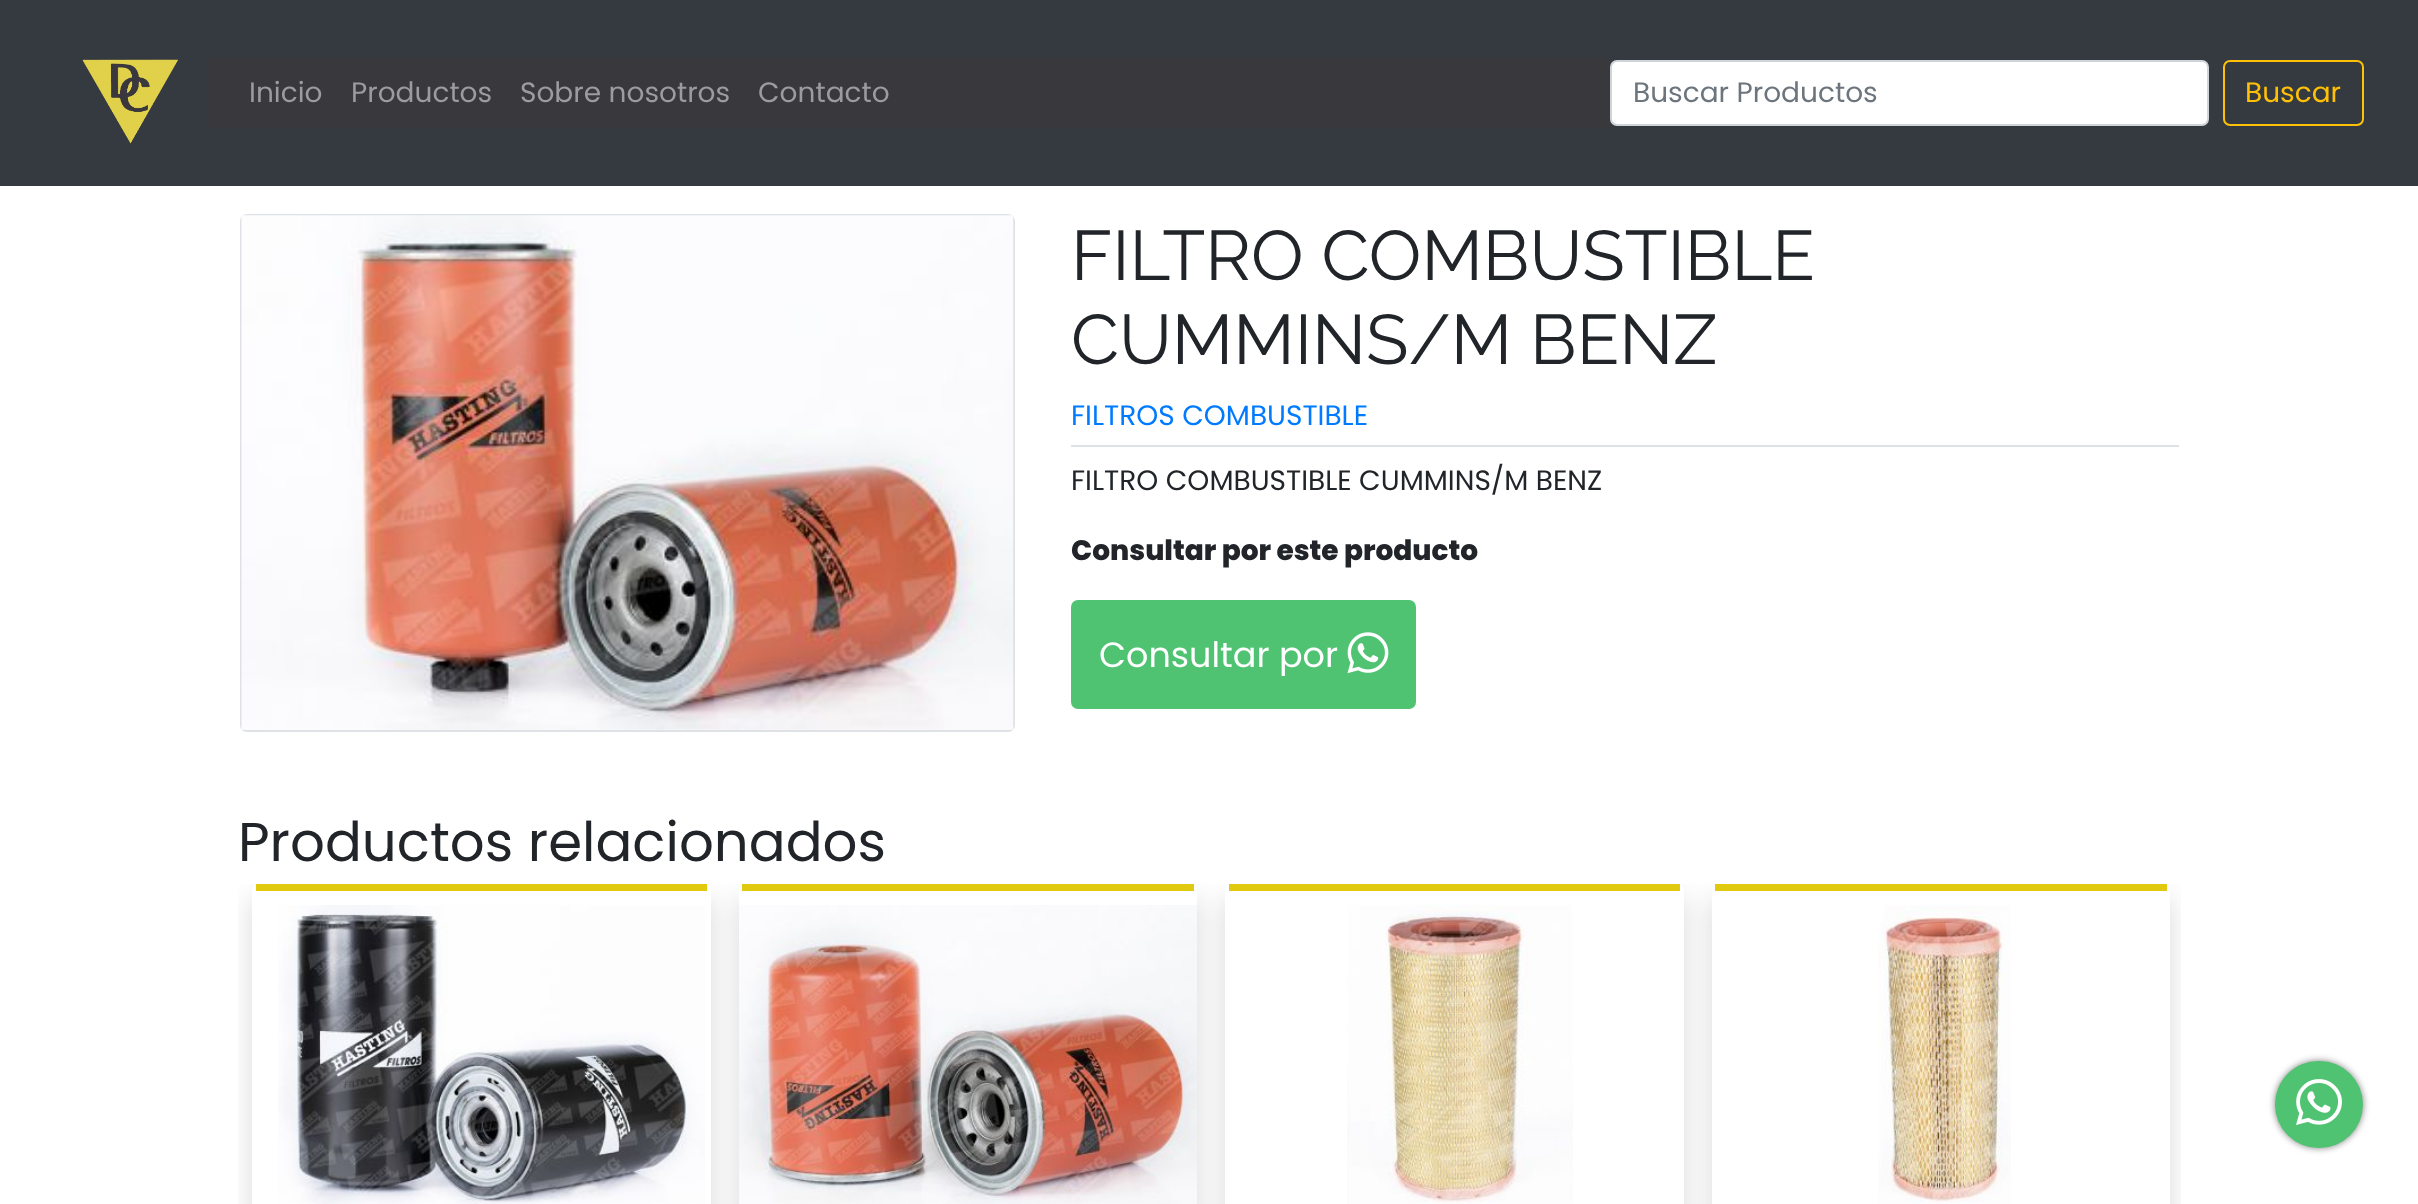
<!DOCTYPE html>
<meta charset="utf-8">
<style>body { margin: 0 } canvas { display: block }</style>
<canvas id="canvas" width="2418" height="1204"></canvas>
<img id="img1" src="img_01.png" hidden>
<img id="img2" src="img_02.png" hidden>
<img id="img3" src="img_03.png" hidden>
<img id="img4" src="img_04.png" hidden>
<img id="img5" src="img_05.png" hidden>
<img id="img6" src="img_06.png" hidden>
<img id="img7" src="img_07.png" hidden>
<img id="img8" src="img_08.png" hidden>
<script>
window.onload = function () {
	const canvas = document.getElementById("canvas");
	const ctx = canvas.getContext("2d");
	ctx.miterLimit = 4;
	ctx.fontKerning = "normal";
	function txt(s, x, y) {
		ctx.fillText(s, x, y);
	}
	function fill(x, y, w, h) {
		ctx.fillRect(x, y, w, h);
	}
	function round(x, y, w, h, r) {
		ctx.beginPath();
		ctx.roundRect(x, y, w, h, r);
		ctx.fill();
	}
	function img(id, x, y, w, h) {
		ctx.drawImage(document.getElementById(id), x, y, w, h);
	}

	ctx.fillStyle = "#FFFFFF";
	fill(0, 0, 2418, 1204);
	ctx.fillStyle = "#343A40";
	fill(0, 0, 2418, 186);
	img("img1", 82, 59, 96, 85);
	ctx.fillStyle = "#39383D";
	fill(207, 58, 1403, 70);
	ctx.fillStyle = "#FFFFFF";
	ctx.beginPath();
	ctx.roundRect(1611, 61, 597, 64, 6);
	ctx.fill();
	ctx.strokeStyle = "#CED4DA";
	ctx.lineWidth = 2;
	ctx.stroke();
	ctx.beginPath();
	ctx.roundRect(2224, 61, 139, 64, 6);
	ctx.strokeStyle = "#FFC107";
	ctx.stroke();
	ctx.beginPath();
	ctx.roundRect(241, 215, 773, 516, 6);
	ctx.strokeStyle = "#DEE2E6";
	ctx.stroke();
	img("img2", 241, 215, 773, 515);
	ctx.fillStyle = "#DEE2E6";
	fill(1071, 445, 1108, 2);
	ctx.fillStyle = "#50C372";
	round(1071, 600, 345, 109, 7);
	img("img3", 1347, 632, 42, 42);
	ctx.save();
	ctx.beginPath();
	ctx.rect(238, 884, 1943, 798);
	ctx.clip();
	ctx.beginPath();
	ctx.moveTo(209, 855);
	ctx.lineTo(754, 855);
	ctx.lineTo(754, 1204);
	ctx.lineTo(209, 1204);
	ctx.closePath();
	ctx.moveTo(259, 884);
	ctx.lineTo(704, 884);
	ctx.bezierCurveTo(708, 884, 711, 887, 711, 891);
	ctx.lineTo(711, 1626);
	ctx.bezierCurveTo(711, 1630, 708, 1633, 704, 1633);
	ctx.lineTo(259, 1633);
	ctx.bezierCurveTo(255, 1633, 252, 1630, 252, 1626);
	ctx.lineTo(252, 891);
	ctx.bezierCurveTo(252, 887, 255, 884, 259, 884);
	ctx.closePath();
	ctx.clip("evenodd");
	ctx.fillStyle = "rgba(0, 0, 0, 0.15)";
	ctx.filter = "blur(14px)";
	ctx.beginPath();
	ctx.roundRect(252, 898, 459, 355, 7);
	ctx.fill();
	ctx.filter = "none";
	ctx.restore();
	ctx.fillStyle = "#E1C90F";
	fill(256, 884, 451, 7);
	img("img4", 278, 905, 427, 299);
	ctx.save();
	ctx.beginPath();
	ctx.rect(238, 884, 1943, 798);
	ctx.clip();
	ctx.beginPath();
	ctx.moveTo(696, 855);
	ctx.lineTo(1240, 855);
	ctx.lineTo(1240, 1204);
	ctx.lineTo(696, 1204);
	ctx.closePath();
	ctx.moveTo(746, 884);
	ctx.lineTo(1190, 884);
	ctx.bezierCurveTo(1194, 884, 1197, 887, 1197, 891);
	ctx.lineTo(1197, 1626);
	ctx.bezierCurveTo(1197, 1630, 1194, 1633, 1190, 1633);
	ctx.lineTo(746, 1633);
	ctx.bezierCurveTo(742, 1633, 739, 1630, 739, 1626);
	ctx.lineTo(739, 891);
	ctx.bezierCurveTo(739, 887, 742, 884, 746, 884);
	ctx.closePath();
	ctx.clip("evenodd");
	ctx.fillStyle = "rgba(0, 0, 0, 0.15)";
	ctx.filter = "blur(14px)";
	ctx.beginPath();
	ctx.roundRect(739, 898, 458, 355, 7);
	ctx.fill();
	ctx.filter = "none";
	ctx.restore();
	fill(742, 884, 452, 7);
	img("img5", 739, 905, 458, 299);
	ctx.save();
	ctx.beginPath();
	ctx.rect(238, 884, 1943, 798);
	ctx.clip();
	ctx.beginPath();
	ctx.moveTo(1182, 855);
	ctx.lineTo(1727, 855);
	ctx.lineTo(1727, 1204);
	ctx.lineTo(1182, 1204);
	ctx.closePath();
	ctx.moveTo(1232, 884);
	ctx.lineTo(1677, 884);
	ctx.bezierCurveTo(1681, 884, 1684, 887, 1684, 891);
	ctx.lineTo(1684, 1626);
	ctx.bezierCurveTo(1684, 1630, 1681, 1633, 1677, 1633);
	ctx.lineTo(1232, 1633);
	ctx.bezierCurveTo(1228, 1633, 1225, 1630, 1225, 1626);
	ctx.lineTo(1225, 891);
	ctx.bezierCurveTo(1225, 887, 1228, 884, 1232, 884);
	ctx.closePath();
	ctx.clip("evenodd");
	ctx.fillStyle = "rgba(0, 0, 0, 0.15)";
	ctx.filter = "blur(14px)";
	ctx.beginPath();
	ctx.roundRect(1225, 898, 459, 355, 7);
	ctx.fill();
	ctx.filter = "none";
	ctx.restore();
	fill(1229, 884, 451, 7);
	img("img6", 1347, 905, 226, 299);
	ctx.save();
	ctx.beginPath();
	ctx.rect(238, 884, 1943, 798);
	ctx.clip();
	ctx.beginPath();
	ctx.moveTo(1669, 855);
	ctx.lineTo(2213, 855);
	ctx.lineTo(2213, 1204);
	ctx.lineTo(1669, 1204);
	ctx.closePath();
	ctx.moveTo(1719, 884);
	ctx.lineTo(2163, 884);
	ctx.bezierCurveTo(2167, 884, 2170, 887, 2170, 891);
	ctx.lineTo(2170, 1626);
	ctx.bezierCurveTo(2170, 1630, 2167, 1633, 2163, 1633);
	ctx.lineTo(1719, 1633);
	ctx.bezierCurveTo(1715, 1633, 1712, 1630, 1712, 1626);
	ctx.lineTo(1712, 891);
	ctx.bezierCurveTo(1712, 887, 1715, 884, 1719, 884);
	ctx.closePath();
	ctx.clip("evenodd");
	ctx.fillStyle = "rgba(0, 0, 0, 0.15)";
	ctx.filter = "blur(14px)";
	ctx.beginPath();
	ctx.roundRect(1712, 898, 458, 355, 7);
	ctx.fill();
	ctx.filter = "none";
	ctx.restore();
	fill(1715, 884, 452, 7);
	img("img7", 1878, 905, 133, 299);
	ctx.fillStyle = "#7F7F7F";
	ctx.filter = "blur(3.5px)";
	ctx.beginPath();
	ctx.roundRect(2275, 1061, 88, 87, 43.5);
	ctx.fill();
	ctx.filter = "none";
	ctx.fillStyle = "#50C372";
	round(2275, 1061, 88, 87, 43.5);
	img("img8", 2296, 1079, 46, 46);
	ctx.font = "28px Poppins";
	ctx.fillStyle = "#9C9C9E";
	txt("Inicio", 249, 102);
	txt("Productos", 351, 102);
	txt("Sobre nosotros", 520, 102);
	txt("Contacto", 758, 102);
	ctx.fillStyle = "#6C757D";
	txt("Buscar Productos", 1633, 102);
	ctx.fillStyle = "#FFC107";
	txt("Buscar", 2245, 102);
	ctx.font = "70px Raleway";
	ctx.fillStyle = "#212529";
	txt("FILTRO COMBUSTIBLE", 1071, 280);
	txt("CUMMINS/M BENZ", 1071, 364);
	ctx.font = "28px Poppins";
	ctx.fillStyle = "#007BFF";
	txt("FILTROS COMBUSTIBLE", 1071, 425);
	ctx.fillStyle = "#212529";
	txt("FILTRO COMBUSTIBLE CUMMINS/M BENZ", 1071, 490);
	ctx.font = "800 28px Poppins";
	txt("Consultar por este producto", 1071, 560);
	ctx.font = "35px Poppins";
	ctx.fillStyle = "#FFFFFF";
	txt("Consultar por", 1099, 667);
	ctx.font = "54.6px Poppins";
	ctx.fillStyle = "#212529";
	txt("Productos relacionados", 238, 861);
};
</script>
